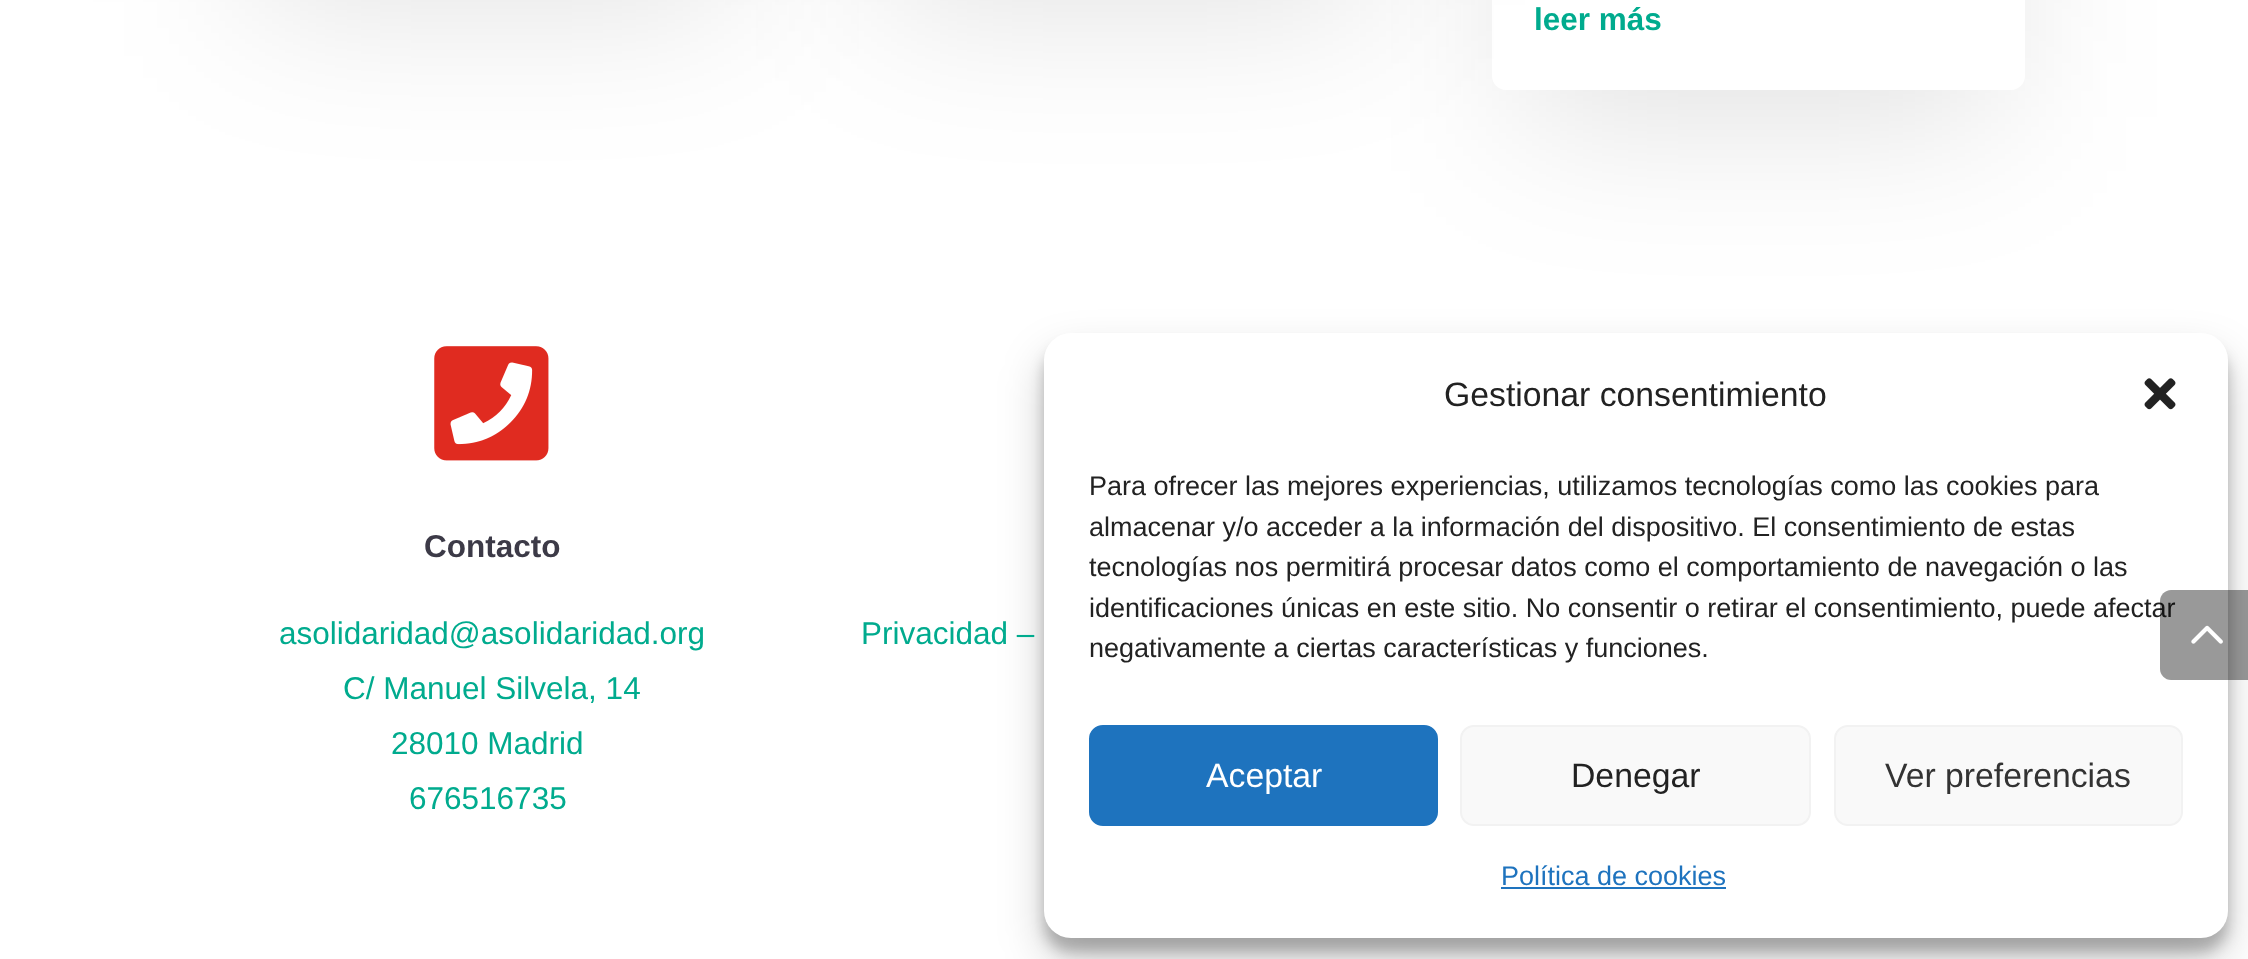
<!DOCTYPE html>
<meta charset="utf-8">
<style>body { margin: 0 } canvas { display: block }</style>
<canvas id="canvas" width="2248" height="959"></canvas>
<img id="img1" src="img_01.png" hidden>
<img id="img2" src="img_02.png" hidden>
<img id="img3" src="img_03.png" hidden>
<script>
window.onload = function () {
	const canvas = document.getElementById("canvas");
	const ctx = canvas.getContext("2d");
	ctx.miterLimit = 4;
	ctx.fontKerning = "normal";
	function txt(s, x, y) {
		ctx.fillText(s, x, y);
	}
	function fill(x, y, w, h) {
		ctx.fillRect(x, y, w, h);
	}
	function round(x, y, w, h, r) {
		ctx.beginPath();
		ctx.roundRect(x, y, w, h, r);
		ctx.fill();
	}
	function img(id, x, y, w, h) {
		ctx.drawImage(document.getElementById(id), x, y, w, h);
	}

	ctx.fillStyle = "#FFFFFF";
	fill(0, 0, 2248, 959);
	ctx.fillStyle = "rgba(0, 0, 0, 0.12)";
	ctx.filter = "blur(81px)";
	ctx.beginPath();
	ctx.rect(252, -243, 479, 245);
	ctx.fill();
	ctx.filter = "none";
	ctx.filter = "blur(81px)";
	ctx.beginPath();
	ctx.rect(884, -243, 482, 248);
	ctx.fill();
	ctx.filter = "none";
	ctx.save();
	ctx.beginPath();
	ctx.moveTo(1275, 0);
	ctx.lineTo(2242, 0);
	ctx.lineTo(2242, 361);
	ctx.lineTo(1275, 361);
	ctx.closePath();
	ctx.moveTo(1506, -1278);
	ctx.lineTo(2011, -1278);
	ctx.bezierCurveTo(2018.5, -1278, 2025, -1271.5, 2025, -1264);
	ctx.lineTo(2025, 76);
	ctx.bezierCurveTo(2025, 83.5, 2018.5, 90, 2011, 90);
	ctx.lineTo(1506, 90);
	ctx.bezierCurveTo(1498.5, 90, 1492, 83.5, 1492, 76);
	ctx.lineTo(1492, -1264);
	ctx.bezierCurveTo(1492, -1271.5, 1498.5, -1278, 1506, -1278);
	ctx.closePath();
	ctx.clip("evenodd");
	ctx.filter = "blur(81px)";
	ctx.beginPath();
	ctx.rect(1519, -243, 479, 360);
	ctx.fill();
	ctx.filter = "none";
	ctx.restore();
	img("img1", 434, 346, 115, 115);
	ctx.fillStyle = "rgba(0, 0, 0, 0.23)";
	ctx.filter = "blur(7px)";
	ctx.beginPath();
	ctx.roundRect(1044, 347, 1184, 605, 27);
	ctx.fill();
	ctx.filter = "none";
	ctx.fillStyle = "rgba(0, 0, 0, 0.19)";
	ctx.filter = "blur(22.5px)";
	ctx.beginPath();
	ctx.roundRect(1044, 356, 1184, 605, 27);
	ctx.fill();
	ctx.filter = "none";
	ctx.fillStyle = "#FFFFFF";
	round(1044, 333, 1184, 605, 27);
	img("img2", 2144, 378, 32, 32);
	ctx.fillStyle = "#1E73BE";
	ctx.beginPath();
	ctx.roundRect(1090, 726, 347, 99, 13);
	ctx.fill();
	ctx.strokeStyle = "#1E73BE";
	ctx.lineWidth = 2;
	ctx.stroke();
	ctx.fillStyle = "#F9F9F9";
	ctx.beginPath();
	ctx.roundRect(1461, 726, 349, 99, 13);
	ctx.fill();
	ctx.strokeStyle = "#F2F2F2";
	ctx.stroke();
	ctx.beginPath();
	ctx.roundRect(1835, 726, 347, 99, 13);
	ctx.fill();
	ctx.stroke();
	ctx.fillStyle = "#1E73BE";
	fill(1501, 887, 225, 2);
	ctx.font = "bold 31.5px Liberation Sans";
	ctx.fillStyle = "#00AB8E";
	txt("leer más", 1534, 30);
	ctx.fillStyle = "#3C3A47";
	txt("Contacto", 424, 557);
	ctx.font = "31.5px Liberation Sans";
	ctx.fillStyle = "#00AB8E";
	txt("asolidaridad@asolidaridad.org", 279, 644);
	txt("C/ Manuel Silvela, 14", 343, 699);
	txt("28010 Madrid", 391, 754);
	txt("676516735", 409, 809);
	txt("Privacidad –", 861, 644);
	ctx.font = "33.75px Liberation Sans";
	ctx.fillStyle = "#222222";
	txt("Gestionar consentimiento", 1444, 406);
	ctx.font = "27px Liberation Sans";
	txt("Para ofrecer las mejores experiencias, utilizamos tecnologías como las cookies para", 1089, 495);
	txt("almacenar y/o acceder a la información del dispositivo. El consentimiento de estas", 1089, 536);
	txt("tecnologías nos permitirá procesar datos como el comportamiento de navegación o las", 1089, 576);
	txt("identificaciones únicas en este sitio. No consentir o retirar el consentimiento, puede afectar", 1089, 617);
	txt("negativamente a ciertas características y funciones.", 1089, 657);
	ctx.font = "33.75px Liberation Sans";
	ctx.fillStyle = "#FFFFFF";
	txt("Aceptar", 1206, 787);
	ctx.fillStyle = "#222222";
	txt("Denegar", 1571, 787);
	ctx.fillStyle = "#333333";
	txt("Ver preferencias", 1885, 787);
	ctx.font = "27px Liberation Sans";
	ctx.fillStyle = "#1E73BE";
	txt("Política de cookies", 1501, 885);
	ctx.fillStyle = "rgba(0, 0, 0, 0.4)";
	ctx.beginPath();
	ctx.moveTo(2171, 590);
	ctx.lineTo(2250, 590);
	ctx.lineTo(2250, 680);
	ctx.lineTo(2171, 680);
	ctx.bezierCurveTo(2165, 680, 2160, 675, 2160, 669);
	ctx.lineTo(2160, 601);
	ctx.bezierCurveTo(2160, 595, 2165, 590, 2171, 590);
	ctx.closePath();
	ctx.fill();
	img("img3", 2191, 625, 32, 19);
};
</script>
